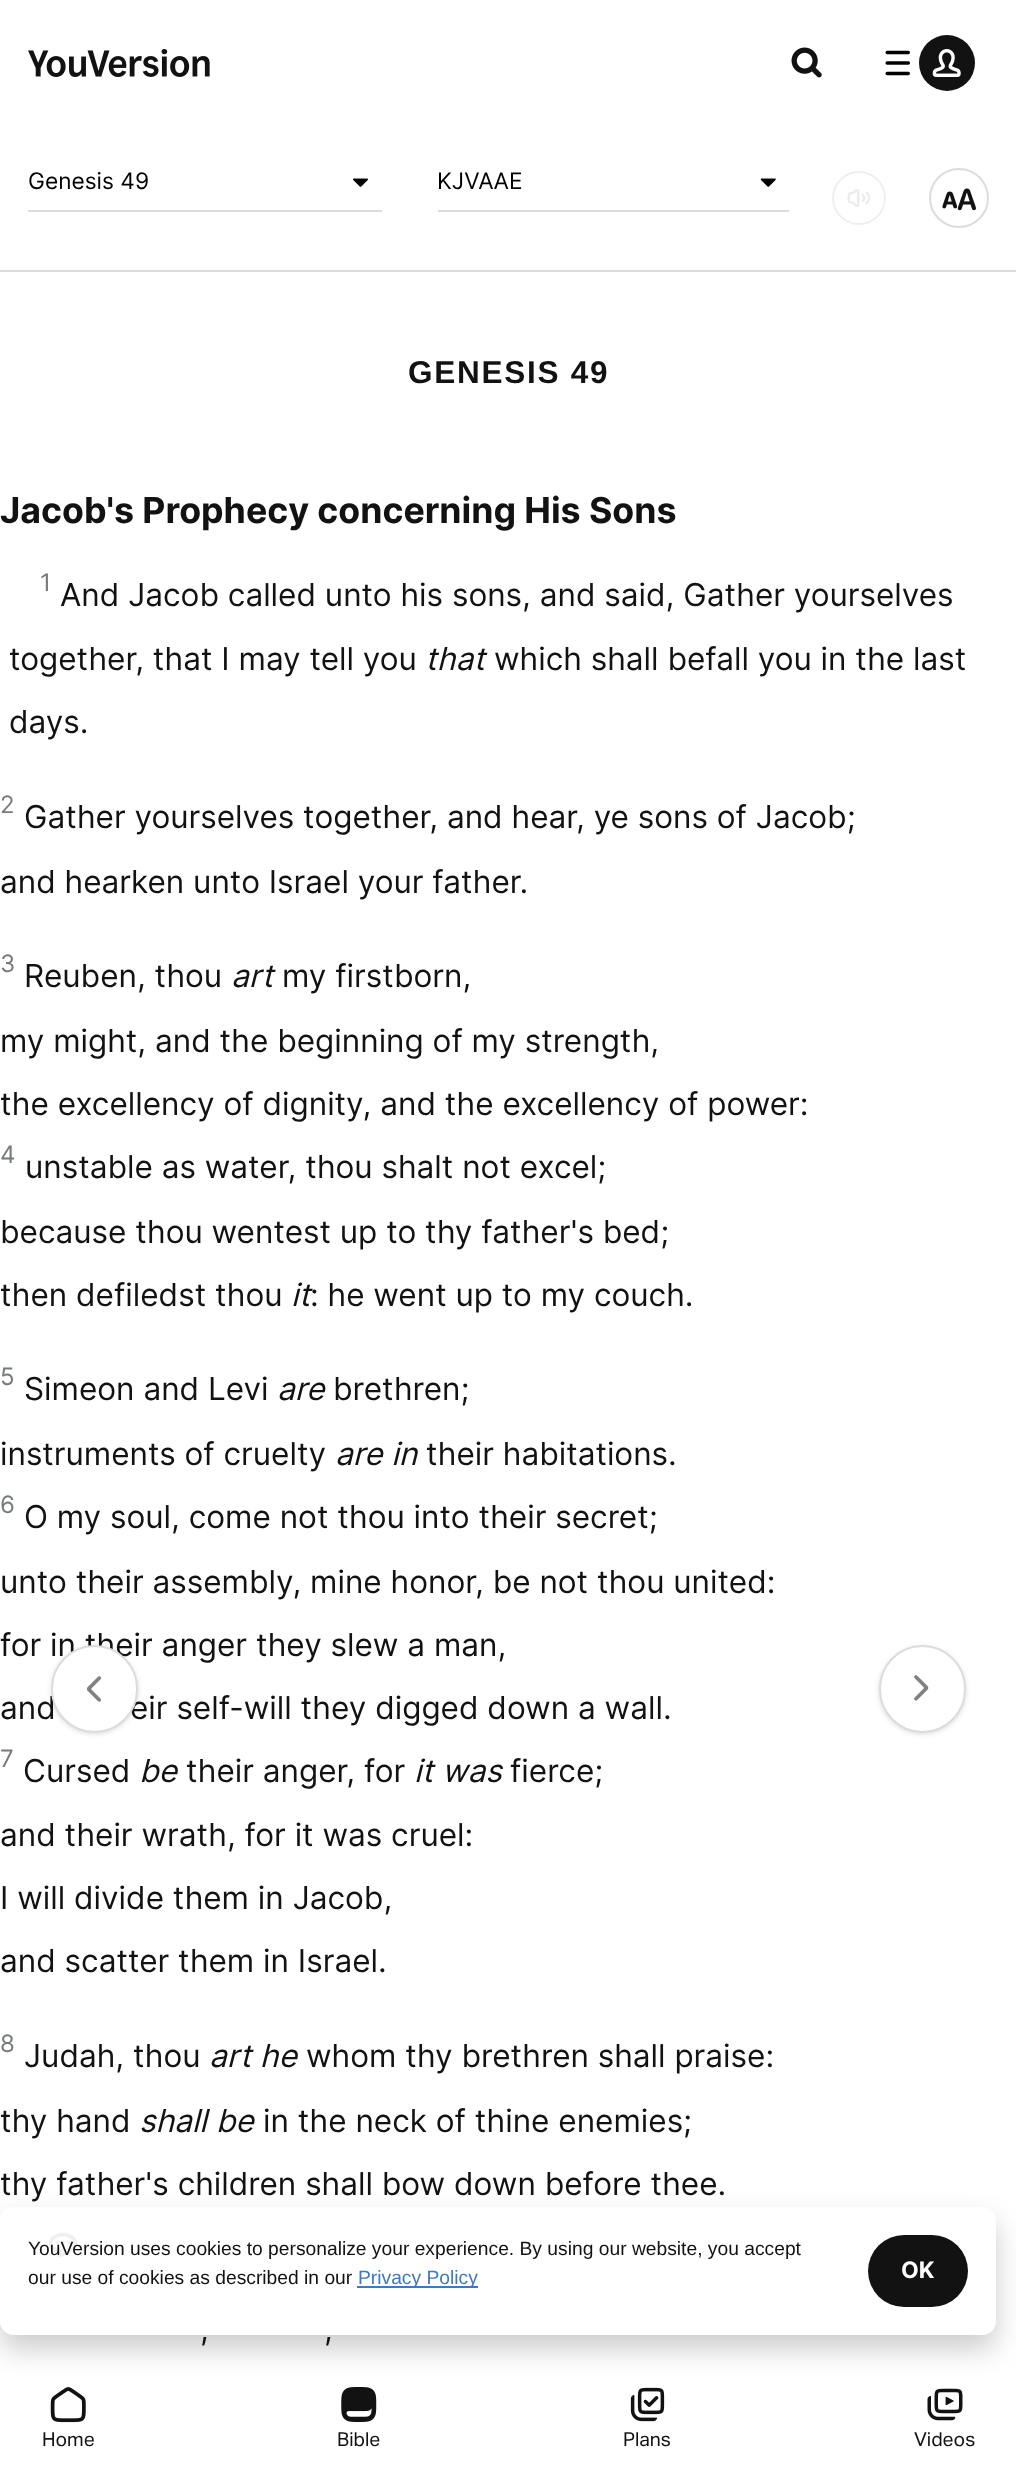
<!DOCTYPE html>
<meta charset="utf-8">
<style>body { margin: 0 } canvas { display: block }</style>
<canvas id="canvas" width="1016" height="2474"></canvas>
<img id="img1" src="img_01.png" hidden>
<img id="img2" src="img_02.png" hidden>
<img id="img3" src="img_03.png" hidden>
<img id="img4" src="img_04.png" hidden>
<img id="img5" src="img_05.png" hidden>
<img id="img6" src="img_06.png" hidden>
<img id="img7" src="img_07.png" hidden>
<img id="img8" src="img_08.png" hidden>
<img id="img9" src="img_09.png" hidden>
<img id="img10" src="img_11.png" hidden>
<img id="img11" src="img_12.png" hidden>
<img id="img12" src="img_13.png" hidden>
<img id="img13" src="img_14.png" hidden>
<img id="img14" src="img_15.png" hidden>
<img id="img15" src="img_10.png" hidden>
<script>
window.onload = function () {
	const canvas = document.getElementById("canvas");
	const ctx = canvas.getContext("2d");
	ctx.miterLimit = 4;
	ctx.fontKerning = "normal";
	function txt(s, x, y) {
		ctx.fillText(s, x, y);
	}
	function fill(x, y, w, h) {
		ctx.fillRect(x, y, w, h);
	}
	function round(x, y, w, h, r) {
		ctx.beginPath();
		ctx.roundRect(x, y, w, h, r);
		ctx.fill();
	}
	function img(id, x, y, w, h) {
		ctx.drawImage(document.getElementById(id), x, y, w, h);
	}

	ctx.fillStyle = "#FFFFFF";
	fill(0, 0, 1016, 2474);
	img("img1", 28, 49, 182, 28);
	img("img2", 791, 47, 31, 31);
	img("img3", 885, 50, 25, 26);
	ctx.fillStyle = "#121212";
	ctx.beginPath();
	ctx.arc(947, 63, 28, 0, Math.PI * 2);
	ctx.fill();
	img("img4", 932, 49, 29, 28);
	ctx.fillStyle = "#DDDBDB";
	fill(0, 270, 1016, 2);
	fill(28, 210, 354, 2);
	img("img5", 353, 178, 15, 9);
	fill(438, 210, 351, 2);
	img("img6", 760, 178, 16, 9);
	img("img7", 847, 189, 23, 18);
	ctx.beginPath();
	ctx.arc(859, 198, 26, 0, Math.PI * 2);
	ctx.strokeStyle = "#EDEFEF";
	ctx.lineWidth = 1.8;
	ctx.stroke();
	ctx.beginPath();
	ctx.arc(959, 198, 29, 0, Math.PI * 2);
	ctx.strokeStyle = "#DDDBDB";
	ctx.lineWidth = 2;
	ctx.stroke();
	img("img8", 942, 188, 34, 23);
	img("img9", 49, 2233, 28, 25);
	ctx.fillStyle = "rgba(18, 18, 18, 0.15)";
	ctx.filter = "blur(2.5px)";
	ctx.beginPath();
	ctx.roundRect(51, 1647, 87, 87, 43.5);
	ctx.fill();
	ctx.filter = "none";
	ctx.filter = "blur(2.5px)";
	ctx.beginPath();
	ctx.roundRect(879, 1647, 87, 87, 43.5);
	ctx.fill();
	ctx.filter = "none";
	ctx.fillStyle = "#FFFFFF";
	ctx.beginPath();
	ctx.roundRect(880, 1646, 85, 86, 42.5);
	ctx.fill();
	ctx.stroke();
	img("img10", 914, 1675, 15, 26);
	img("img11", 50, 2387, 36, 36);
	img("img12", 341, 2387, 36, 35);
	img("img13", 630, 2387, 35, 35);
	img("img14", 927, 2388, 36, 33);
	ctx.save();
	ctx.beginPath();
	ctx.moveTo(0, 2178);
	ctx.lineTo(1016, 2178);
	ctx.lineTo(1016, 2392);
	ctx.lineTo(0, 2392);
	ctx.closePath();
	ctx.moveTo(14, 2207);
	ctx.lineTo(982, 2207);
	ctx.bezierCurveTo(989.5, 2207, 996, 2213.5, 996, 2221);
	ctx.lineTo(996, 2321);
	ctx.bezierCurveTo(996, 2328.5, 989.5, 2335, 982, 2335);
	ctx.lineTo(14, 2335);
	ctx.bezierCurveTo(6.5, 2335, 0, 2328.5, 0, 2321);
	ctx.lineTo(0, 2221);
	ctx.bezierCurveTo(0, 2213.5, 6.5, 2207, 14, 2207);
	ctx.closePath();
	ctx.clip("evenodd");
	ctx.fillStyle = "rgba(0, 0, 0, 0.2)";
	ctx.filter = "blur(14px)";
	ctx.beginPath();
	ctx.roundRect(0, 2221, 996, 128, 14);
	ctx.fill();
	ctx.filter = "none";
	ctx.restore();
	ctx.fillStyle = "rgba(255, 255, 255, 0.8)";
	round(0, 2207, 996, 128, 14);
	ctx.fillStyle = "#3D79C2";
	fill(357, 2286, 121, 2);
	ctx.fillStyle = "#121212";
	round(868, 2235, 100, 72, 36);
	ctx.font = "22.75px Inter";
	ctx.fillStyle = "#000000";
	txt("Genesis 49", 28, 189);
	txt("KJVAAE", 437, 189);
	ctx.letterSpacing = "1.75px";
	ctx.font = "bold 31.5px Liberation Sans";
	ctx.fillStyle = "#121212";
	txt("GENESIS 49", 408, 383);
	ctx.letterSpacing = "0px";
	ctx.font = "bold 35.7px Inter";
	txt("Jacob's Prophecy concerning His Sons", 0, 523);
	ctx.font = "24px Inter";
	ctx.fillStyle = "#777A7B";
	txt("1", 40, 591);
	ctx.font = "31.5px Inter";
	ctx.fillStyle = "#121212";
	txt("And Jacob called unto his sons, and said, Gather yourselves", 60, 606);
	txt("together, that I may tell you", 9, 670);
	ctx.font = "italic 31.5px Inter";
	txt("that", 425, 670);
	ctx.font = "31.5px Inter";
	txt("which shall befall you in the last", 494, 670);
	txt("days.", 9, 733);
	ctx.font = "24px Inter";
	ctx.fillStyle = "#777A7B";
	txt("2", 0, 813);
	ctx.font = "31.5px Inter";
	ctx.fillStyle = "#121212";
	txt("Gather yourselves together, and hear, ye sons of Jacob;", 24, 828);
	txt("and hearken unto Israel your father.", 0, 893);
	ctx.font = "24px Inter";
	ctx.fillStyle = "#777A7B";
	txt("3", 0, 972);
	ctx.font = "31.5px Inter";
	ctx.fillStyle = "#121212";
	txt("Reuben, thou", 24, 987);
	ctx.font = "italic 31.5px Inter";
	txt("art", 231, 987);
	ctx.font = "31.5px Inter";
	txt("my firstborn,", 282, 987);
	txt("my might, and the beginning of my strength,", 0, 1052);
	txt("the excellency of dignity, and the excellency of power:", 0, 1115);
	ctx.font = "24px Inter";
	ctx.fillStyle = "#777A7B";
	txt("4", 0, 1163);
	ctx.font = "31.5px Inter";
	ctx.fillStyle = "#121212";
	txt("unstable as water, thou shalt not excel;", 25, 1178);
	txt("because thou wentest up to thy father's bed;", 0, 1243);
	txt("then defiledst thou", 0, 1306);
	ctx.font = "italic 31.5px Inter";
	txt("it", 291, 1306);
	ctx.font = "31.5px Inter";
	txt(": he went up to my couch.", 310, 1306);
	ctx.font = "24px Inter";
	ctx.fillStyle = "#777A7B";
	txt("5", 0, 1385);
	ctx.font = "31.5px Inter";
	ctx.fillStyle = "#121212";
	txt("Simeon and Levi", 24, 1400);
	ctx.font = "italic 31.5px Inter";
	txt("are", 277, 1400);
	ctx.font = "31.5px Inter";
	txt("brethren;", 333, 1400);
	txt("instruments of cruelty", 0, 1465);
	ctx.font = "italic 31.5px Inter";
	txt("are in", 335, 1465);
	ctx.font = "31.5px Inter";
	txt("their habitations.", 426, 1465);
	ctx.font = "24px Inter";
	ctx.fillStyle = "#777A7B";
	txt("6", 0, 1513);
	ctx.font = "31.5px Inter";
	ctx.fillStyle = "#121212";
	txt("O my soul, come not thou into their secret;", 24, 1528);
	txt("unto their assembly, mine honor, be not thou united:", 0, 1593);
	txt("for in their anger they slew a man,", 0, 1656);
	txt("and", 0, 1719);
	txt("eir self-will they digged down a wall.", 130, 1719);
	ctx.font = "24px Inter";
	ctx.fillStyle = "#777A7B";
	txt("7", 0, 1767);
	ctx.font = "31.5px Inter";
	ctx.fillStyle = "#121212";
	txt("Cursed", 23, 1782);
	ctx.font = "italic 31.5px Inter";
	txt("be", 139, 1782);
	ctx.font = "31.5px Inter";
	txt("their anger, for", 186, 1782);
	ctx.font = "italic 31.5px Inter";
	txt("it was", 414, 1782);
	ctx.font = "31.5px Inter";
	txt("fierce;", 510, 1782);
	txt("and their wrath, for it was cruel:", 0, 1846);
	txt("I will divide them in Jacob,", 0, 1909);
	txt("and scatter them in Israel.", 0, 1972);
	ctx.font = "24px Inter";
	ctx.fillStyle = "#777A7B";
	txt("8", 0, 2052);
	ctx.font = "31.5px Inter";
	ctx.fillStyle = "#121212";
	txt("Judah, thou", 24, 2067);
	ctx.font = "italic 31.5px Inter";
	txt("art he", 209, 2067);
	ctx.font = "31.5px Inter";
	txt("whom thy brethren shall praise:", 306, 2067);
	txt("thy hand", 0, 2132);
	ctx.font = "italic 31.5px Inter";
	txt("shall be", 139, 2132);
	ctx.font = "31.5px Inter";
	txt("in the neck of thine enemies;", 263, 2132);
	txt("thy father's children shall bow down before thee.", 0, 2195);
	txt(",", 200, 2340);
	txt(",", 324, 2340);
	ctx.fillStyle = "#FFFFFF";
	ctx.beginPath();
	ctx.roundRect(52, 1646, 85, 86, 42.5);
	ctx.fill();
	ctx.stroke();
	img("img15", 86, 1676, 15, 26);
	ctx.font = "19.25px Liberation Sans";
	ctx.fillStyle = "#121212";
	txt("YouVersion uses cookies to personalize your experience. By using our website, you accept", 28, 2255);
	txt("our use of cookies as described in our", 28, 2284);
	ctx.fillStyle = "#3D79C2";
	txt("Privacy Policy", 358, 2284);
	ctx.font = "bold 22.75px Inter";
	ctx.fillStyle = "#FFFFFF";
	txt("OK", 901, 2278);
	ctx.font = "19.25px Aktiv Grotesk";
	ctx.fillStyle = "#121212";
	txt("Home", 42, 2446);
	txt("Bible", 337, 2446);
	txt("Plans", 623, 2446);
	txt("Videos", 914, 2446);
};
</script>
